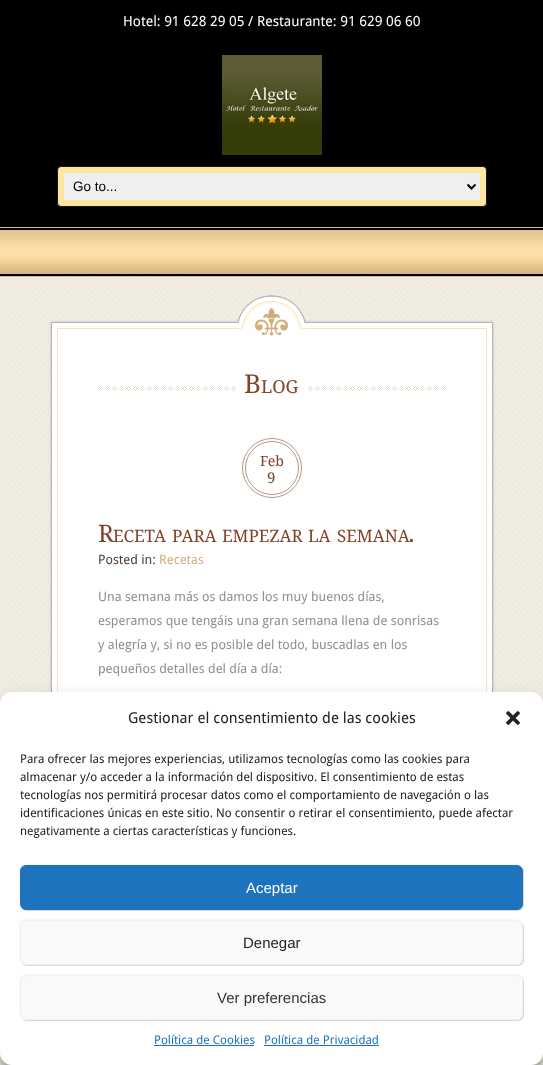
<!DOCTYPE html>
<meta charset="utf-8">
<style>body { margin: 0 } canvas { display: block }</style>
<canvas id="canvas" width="543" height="1065"></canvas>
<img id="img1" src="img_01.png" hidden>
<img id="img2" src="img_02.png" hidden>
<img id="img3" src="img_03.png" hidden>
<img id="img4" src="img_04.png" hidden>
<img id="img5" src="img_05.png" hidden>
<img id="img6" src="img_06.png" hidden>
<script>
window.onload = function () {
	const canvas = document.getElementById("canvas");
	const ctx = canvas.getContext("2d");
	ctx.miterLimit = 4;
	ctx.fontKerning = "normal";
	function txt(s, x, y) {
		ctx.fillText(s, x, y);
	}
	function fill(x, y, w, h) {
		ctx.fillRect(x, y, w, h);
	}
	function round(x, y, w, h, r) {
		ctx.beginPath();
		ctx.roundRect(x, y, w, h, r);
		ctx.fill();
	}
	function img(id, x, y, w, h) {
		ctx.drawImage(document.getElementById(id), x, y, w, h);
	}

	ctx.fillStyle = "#F0ECE1";
	fill(0, 0, 543, 1065);
	img("img1", 2, 277, 541, 786);
	ctx.fillStyle = "#000000";
	fill(0, 0, 543, 227);
	img("img2", 222, 55, 100, 100);
	ctx.fillStyle = "#FDE69F";
	ctx.beginPath();
	ctx.roundRect(57.5, 166.5, 429, 40, 3.5);
	ctx.fill();
	ctx.strokeStyle = "#191919";
	ctx.stroke();
	ctx.fillStyle = "#EFEFEF";
	ctx.beginPath();
	ctx.rect(63.5, 172.5, 417, 28);
	ctx.fill();
	ctx.strokeStyle = "#FDE6A4";
	ctx.stroke();
	ctx.beginPath();
	ctx.moveTo(467.5, 184.5);
	ctx.lineTo(471.5, 188.5);
	ctx.lineTo(475.5, 184.5);
	ctx.strokeStyle = "#000000";
	ctx.lineWidth = 2;
	ctx.stroke();
	img("img3", 0, 227, 543, 50);
	ctx.fillStyle = "#C2C1BF";
	ctx.filter = "blur(1.5px)";
	ctx.beginPath();
	ctx.rect(51, 322, 442, 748);
	ctx.fill();
	ctx.filter = "none";
	ctx.fillStyle = "#FFFFFF";
	fill(52, 323, 440, 369);
	ctx.strokeStyle = "#B4B4B4";
	ctx.lineWidth = 1;
	ctx.strokeRect(51.5, 322.5, 441, 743);
	ctx.strokeStyle = "#FCE2AF";
	ctx.strokeRect(57.5, 328.5, 429, 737);
	img("img4", 236, 295, 71, 41);
	img("img5", 98, 386, 348, 5);
	fill(237, 386, 69, 5);
	ctx.beginPath();
	ctx.arc(272, 468, 29.5, 0, Math.PI * 2);
	ctx.strokeStyle = "#B99586";
	ctx.stroke();
	ctx.beginPath();
	ctx.arc(272, 468, 26.5, 0, Math.PI * 2);
	ctx.stroke();
	ctx.fillStyle = "rgba(0, 0, 0, 0.23)";
	ctx.filter = "blur(3px)";
	ctx.beginPath();
	ctx.roundRect(0, 698, 543, 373, 12);
	ctx.fill();
	ctx.filter = "none";
	ctx.fillStyle = "rgba(0, 0, 0, 0.19)";
	ctx.filter = "blur(10px)";
	ctx.beginPath();
	ctx.roundRect(0, 702, 543, 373, 12);
	ctx.fill();
	ctx.filter = "none";
	ctx.fillStyle = "#808080";
	ctx.filter = "blur(2.5px)";
	ctx.beginPath();
	ctx.roundRect(473, 991, 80, 60, 2);
	ctx.fill();
	ctx.filter = "none";
	ctx.fillStyle = "#FFFFFF";
	round(0, 692, 543, 373, 12);
	img("img6", 506, 711, 14, 14);
	ctx.fillStyle = "#D8D8D8";
	ctx.filter = "blur(0.5px)";
	ctx.beginPath();
	ctx.roundRect(21, 866, 503, 45, 6);
	ctx.fill();
	ctx.filter = "none";
	ctx.fillStyle = "#F9F9F9";
	ctx.beginPath();
	ctx.moveTo(25, 864);
	ctx.bezierCurveTo(22, 864, 19, 867, 19, 870);
	ctx.lineTo(19, 903);
	ctx.bezierCurveTo(19, 905, 20, 907, 21, 908);
	ctx.bezierCurveTo(20, 907, 20, 905, 20, 904);
	ctx.lineTo(20, 871);
	ctx.bezierCurveTo(20, 868, 23, 865, 26, 865);
	ctx.lineTo(517, 865);
	ctx.bezierCurveTo(518, 865, 520, 865, 521, 866);
	ctx.bezierCurveTo(520, 865, 518, 864, 516, 864);
	ctx.closePath();
	ctx.fill();
	ctx.fillStyle = "#1E73BE";
	ctx.beginPath();
	ctx.roundRect(20.5, 865.5, 502, 44, 5.5);
	ctx.fill();
	ctx.strokeStyle = "#1E73BE";
	ctx.stroke();
	ctx.fillStyle = "#D8D8D8";
	ctx.filter = "blur(0.5px)";
	ctx.beginPath();
	ctx.roundRect(21, 921, 503, 45, 6);
	ctx.fill();
	ctx.filter = "none";
	ctx.fillStyle = "#F9F9F9";
	ctx.beginPath();
	ctx.moveTo(25, 919);
	ctx.bezierCurveTo(22, 919, 19, 922, 19, 925);
	ctx.lineTo(19, 958);
	ctx.bezierCurveTo(19, 960, 20, 962, 21, 963);
	ctx.bezierCurveTo(20, 962, 20, 960, 20, 959);
	ctx.lineTo(20, 926);
	ctx.bezierCurveTo(20, 923, 23, 920, 26, 920);
	ctx.lineTo(517, 920);
	ctx.bezierCurveTo(518, 920, 520, 920, 521, 921);
	ctx.bezierCurveTo(520, 920, 518, 919, 516, 919);
	ctx.closePath();
	ctx.fill();
	ctx.beginPath();
	ctx.roundRect(20.5, 920.5, 502, 44, 5.5);
	ctx.fill();
	ctx.strokeStyle = "#F2F2F2";
	ctx.stroke();
	ctx.fillStyle = "#D8D8D8";
	ctx.filter = "blur(0.5px)";
	ctx.beginPath();
	ctx.roundRect(21, 976, 503, 45, 6);
	ctx.fill();
	ctx.filter = "none";
	ctx.fillStyle = "#F9F9F9";
	ctx.beginPath();
	ctx.moveTo(25, 974);
	ctx.bezierCurveTo(22, 974, 19, 977, 19, 980);
	ctx.lineTo(19, 1013);
	ctx.bezierCurveTo(19, 1015, 20, 1017, 21, 1018);
	ctx.bezierCurveTo(20, 1017, 20, 1015, 20, 1014);
	ctx.lineTo(20, 981);
	ctx.bezierCurveTo(20, 978, 23, 975, 26, 975);
	ctx.lineTo(517, 975);
	ctx.bezierCurveTo(518, 975, 520, 975, 521, 976);
	ctx.bezierCurveTo(520, 975, 518, 974, 516, 974);
	ctx.closePath();
	ctx.fill();
	ctx.beginPath();
	ctx.roundRect(20.5, 975.5, 502, 44, 5.5);
	ctx.fill();
	ctx.stroke();
	ctx.fillStyle = "#1E73BE";
	fill(154, 1045, 100, 1);
	fill(264, 1045, 115, 1);
	ctx.font = "14px Droid Sans";
	ctx.fillStyle = "#FFFFFF";
	txt("Hotel: 91 628 29 05 / Restaurante: 91 629 06 60", 123, 26);
	ctx.font = "13.5px Liberation Sans";
	ctx.fillStyle = "#000000";
	txt("Go to...", 73, 191);
	ctx.font = "26px Droid Serif";
	ctx.fillStyle = "#824328";
	txt("B", 244, 393);
	ctx.font = "18px Droid Serif";
	txt("LOG", 261, 393);
	ctx.font = "14px Droid Serif";
	txt("Feb", 260, 466);
	ctx.font = "15px Droid Serif";
	txt("9", 267, 483);
	ctx.font = "24px Droid Serif";
	txt("R", 98, 542);
	ctx.font = "17px Droid Serif";
	txt("ECETA", 113, 542);
	txt("PARA", 172, 542);
	txt("EMPEZAR", 222, 542);
	txt("LA", 308, 542);
	txt("SEMANA", 337, 542);
	ctx.font = "24px Droid Serif";
	txt(".", 408, 542);
	ctx.font = "13px Droid Sans";
	ctx.fillStyle = "#514032";
	txt("Posted in:", 98, 564);
	ctx.fillStyle = "#D3AF80";
	txt("Recetas", 159, 564);
	ctx.fillStyle = "#909090";
	txt("Una semana más os damos los muy buenos días,", 98, 601);
	txt("esperamos que tengáis una gran semana llena de sonrisas", 98, 625);
	txt("y alegría y, si no es posible del todo, buscadlas en los", 98, 649);
	txt("pequeños detalles del día a día:", 98, 673);
	ctx.font = "15px Droid Sans";
	ctx.fillStyle = "#222222";
	txt("Gestionar el consentimiento de las cookies", 128, 723);
	ctx.font = "12px Droid Sans";
	txt("Para ofrecer las mejores experiencias, utilizamos tecnologías como las cookies para", 20, 763);
	txt("almacenar y/o acceder a la información del dispositivo. El consentimiento de estas", 20, 781);
	txt("tecnologías nos permitirá procesar datos como el comportamiento de navegación o las", 20, 799);
	txt("identificaciones únicas en este sitio. No consentir o retirar el consentimiento, puede afectar", 20, 817);
	txt("negativamente a ciertas características y funciones.", 20, 835);
	ctx.font = "15px Liberation Sans";
	ctx.fillStyle = "#FFFFFF";
	txt("Aceptar", 246, 893);
	ctx.fillStyle = "#222222";
	txt("Denegar", 243, 948);
	ctx.fillStyle = "#333333";
	txt("Ver preferencias", 217, 1003);
	ctx.font = "12px Droid Sans";
	ctx.fillStyle = "#1E73BE";
	txt("Política de Cookies", 154, 1044);
	txt("Política de Privacidad", 264, 1044);
};
</script>
